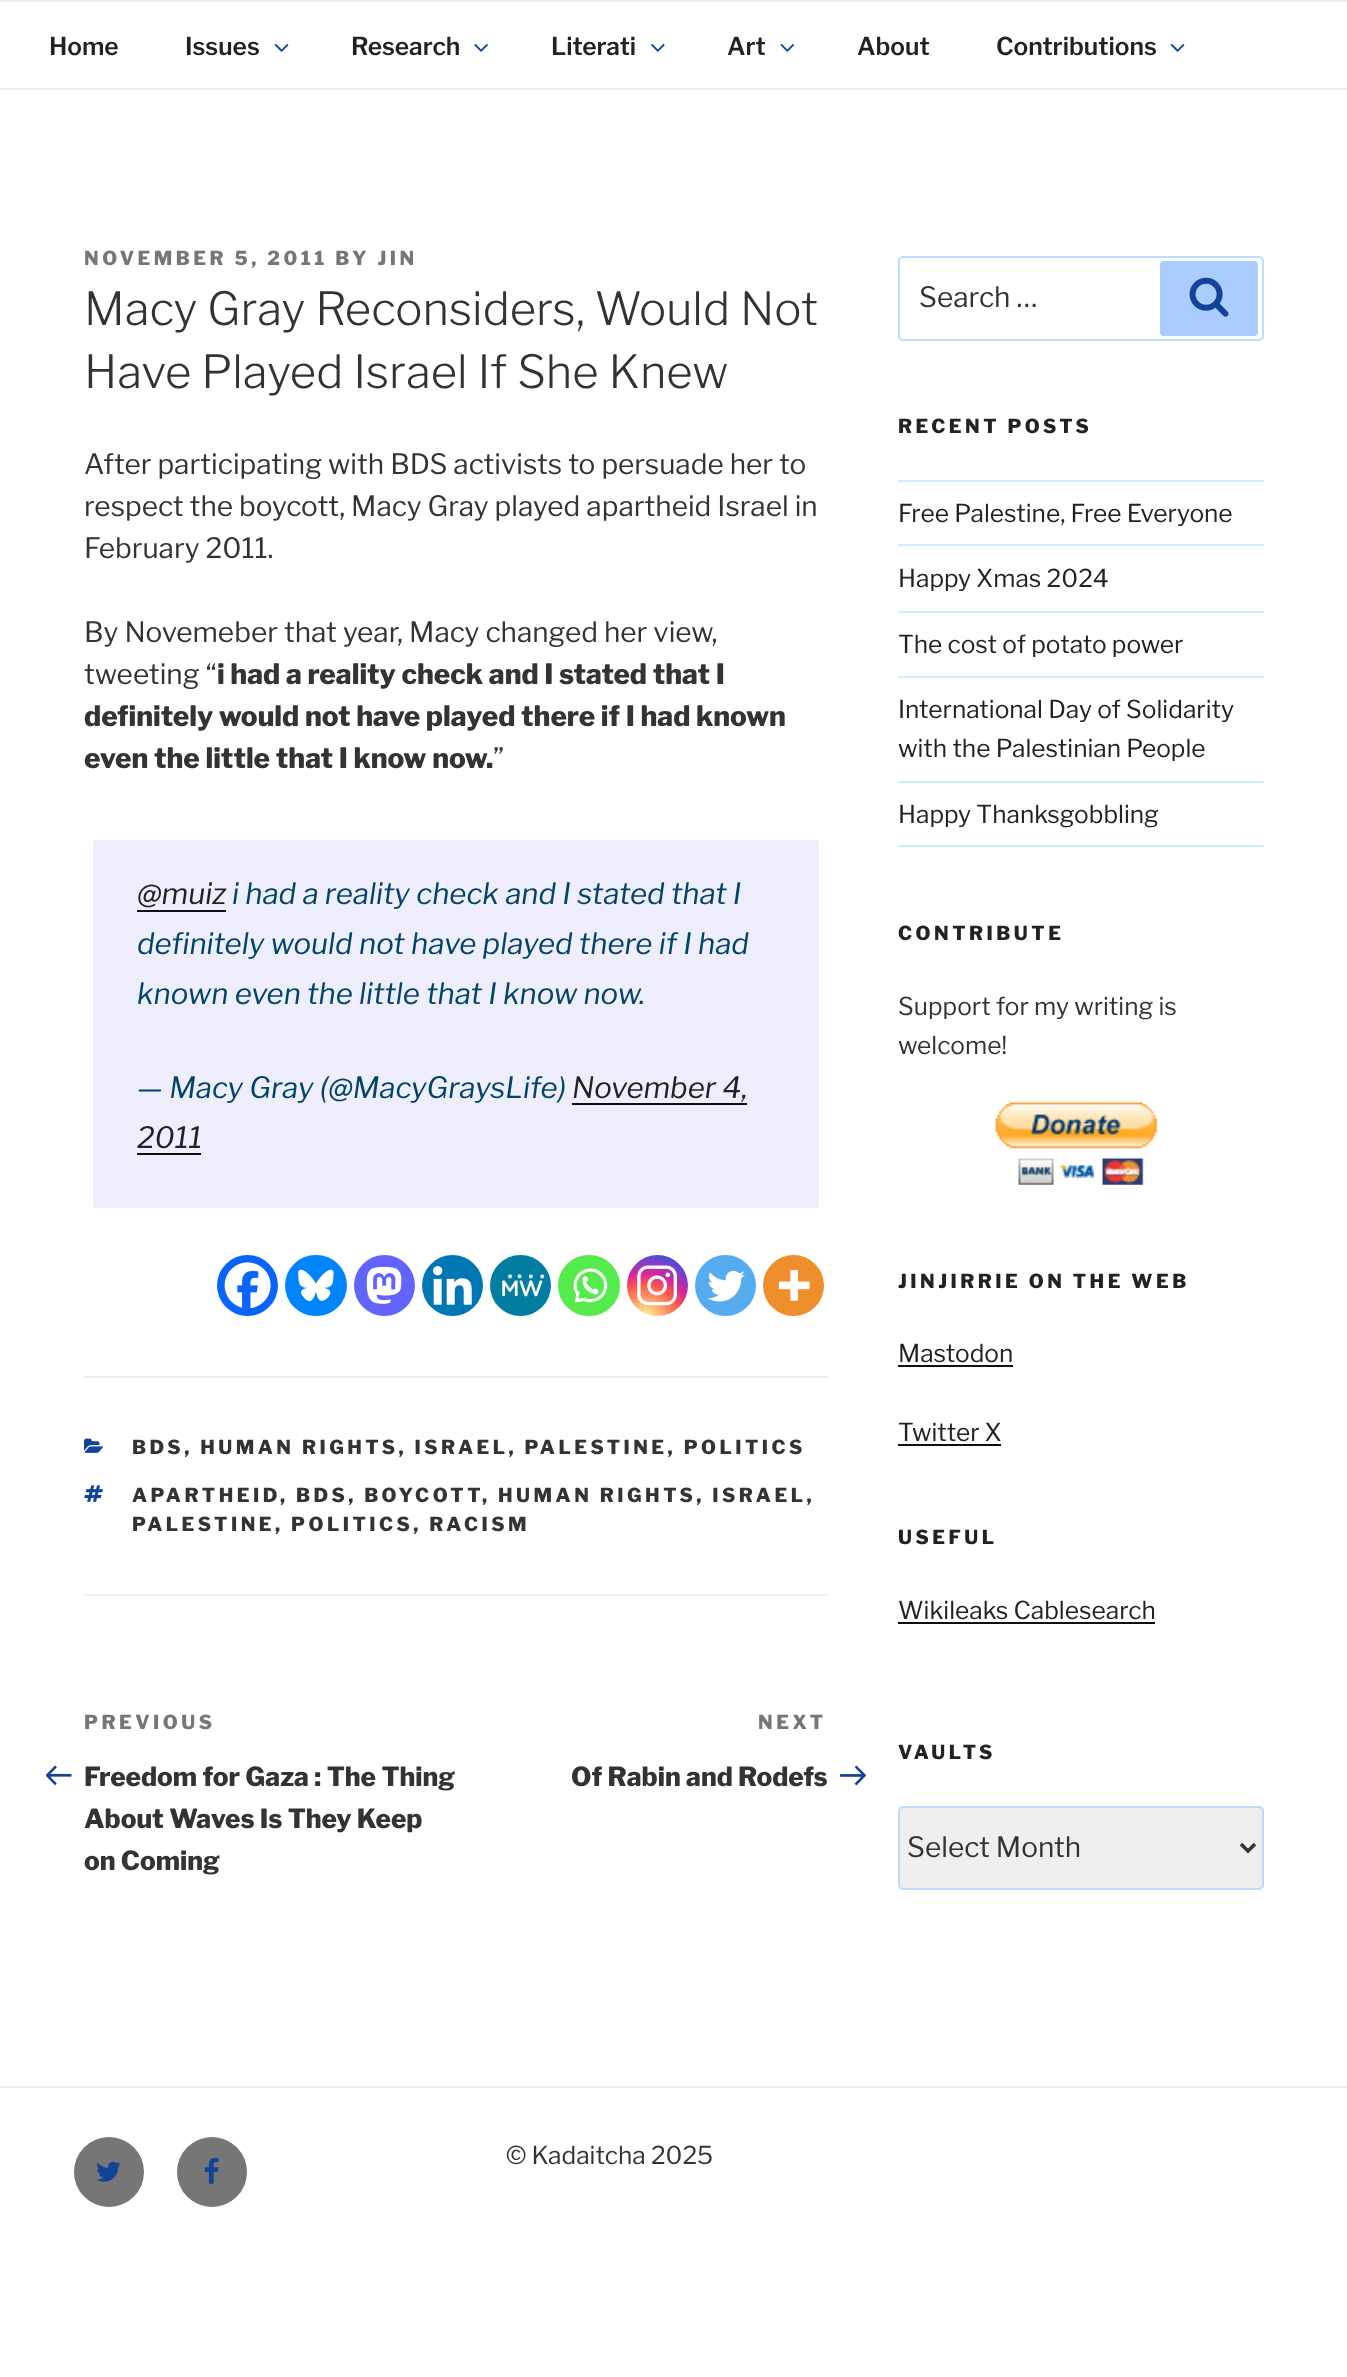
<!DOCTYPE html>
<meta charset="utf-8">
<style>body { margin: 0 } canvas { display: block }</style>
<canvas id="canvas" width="1347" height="2377"></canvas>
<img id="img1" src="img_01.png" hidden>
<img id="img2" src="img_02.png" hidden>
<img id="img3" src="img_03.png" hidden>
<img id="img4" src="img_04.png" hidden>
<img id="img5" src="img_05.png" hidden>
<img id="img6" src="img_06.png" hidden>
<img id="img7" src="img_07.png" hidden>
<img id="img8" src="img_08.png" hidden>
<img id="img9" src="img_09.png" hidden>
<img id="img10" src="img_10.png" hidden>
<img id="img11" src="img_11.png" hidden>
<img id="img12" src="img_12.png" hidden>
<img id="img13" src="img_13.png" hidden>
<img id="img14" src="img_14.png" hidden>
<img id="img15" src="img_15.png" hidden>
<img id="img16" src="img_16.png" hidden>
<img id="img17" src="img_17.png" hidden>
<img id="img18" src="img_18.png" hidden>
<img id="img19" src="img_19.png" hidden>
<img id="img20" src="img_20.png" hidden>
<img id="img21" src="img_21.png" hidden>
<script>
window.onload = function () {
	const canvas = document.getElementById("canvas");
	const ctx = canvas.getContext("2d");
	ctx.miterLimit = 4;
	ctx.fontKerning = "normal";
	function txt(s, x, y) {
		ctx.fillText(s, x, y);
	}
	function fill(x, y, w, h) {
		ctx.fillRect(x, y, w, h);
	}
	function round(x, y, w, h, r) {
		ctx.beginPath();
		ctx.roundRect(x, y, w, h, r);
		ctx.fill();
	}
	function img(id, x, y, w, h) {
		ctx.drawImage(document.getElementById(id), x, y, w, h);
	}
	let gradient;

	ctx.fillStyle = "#FFFFFF";
	fill(0, 0, 1347, 2377);
	ctx.fillStyle = "#EEEEEE";
	fill(0, 0, 1347, 2);
	fill(0, 88, 1347, 2);
	img("img1", 274, 44, 15, 8);
	img("img2", 474, 44, 14, 8);
	img("img3", 651, 44, 14, 8);
	img("img4", 780, 44, 15, 8);
	img("img1", 1170, 44, 15, 8);
	ctx.fillStyle = "#EEEEFF";
	fill(93, 840, 726, 368);
	ctx.fillStyle = "#0F0F0F";
	fill(137, 910, 89, 2);
	fill(572, 1103, 175, 2);
	fill(137, 1153, 64, 2);
	ctx.fillStyle = "#0765FE";
	ctx.beginPath();
	ctx.arc(247.5, 1285.5, 30.5, 0, Math.PI * 2);
	ctx.fill();
	img("img5", 224, 1262, 47, 47);
	ctx.fillStyle = "#0085FF";
	round(285, 1255, 62, 61, 30.5);
	img("img6", 298, 1269, 36, 32);
	ctx.fillStyle = "#6364FF";
	ctx.beginPath();
	ctx.arc(384.5, 1285.5, 30.5, 0, Math.PI * 2);
	ctx.fill();
	img("img7", 366, 1266, 36, 38);
	ctx.fillStyle = "#0077B5";
	ctx.beginPath();
	ctx.arc(452.5, 1285.5, 30.5, 0, Math.PI * 2);
	ctx.fill();
	img("img8", 433, 1266, 39, 39);
	ctx.fillStyle = "#007DA1";
	ctx.beginPath();
	ctx.arc(520.5, 1285.5, 30.5, 0, Math.PI * 2);
	ctx.fill();
	img("img9", 502, 1274, 43, 23);
	ctx.fillStyle = "#55EB4C";
	round(558, 1255, 62, 61, 30.5);
	img("img10", 573, 1268, 35, 35);
	gradient = ctx.createRadialGradient(645, 1320, 0, 645, 1320, 78);
	gradient.addColorStop(0, "#FDF497");
	gradient.addColorStop(0.05, "#FDF497");
	gradient.addColorStop(0.45, "#FD5949");
	gradient.addColorStop(0.6, "#D6249F");
	gradient.addColorStop(0.9, "#285AEB");
	ctx.fillStyle = gradient;
	ctx.beginPath();
	ctx.arc(657.5, 1285.5, 30.5, 0, Math.PI * 2);
	ctx.fill();
	img("img11", 637, 1265, 40, 41);
	ctx.fillStyle = "#55ACEE";
	ctx.beginPath();
	ctx.arc(725.5, 1285.5, 30.5, 0, Math.PI * 2);
	ctx.fill();
	img("img12", 707, 1270, 38, 32);
	ctx.fillStyle = "#EE8E2D";
	ctx.beginPath();
	ctx.arc(793.5, 1285.5, 30.5, 0, Math.PI * 2);
	ctx.fill();
	img("img13", 778, 1270, 32, 31);
	ctx.fillStyle = "#EEEEEE";
	fill(84, 1376, 744, 2);
	fill(84, 1594, 744, 2);
	img("img14", 84, 1438, 19, 15);
	img("img15", 84, 1485, 19, 17);
	img("img16", 46, 1765, 26, 21);
	img("img17", 840, 1765, 26, 21);
	ctx.beginPath();
	ctx.roundRect(899, 257, 364, 83, 4);
	ctx.strokeStyle = "#BBDDFF";
	ctx.lineWidth = 2;
	ctx.stroke();
	ctx.fillStyle = "#AACCFF";
	round(1160, 261, 98, 75, 4);
	img("img18", 1189, 277, 40, 40);
	ctx.fillStyle = "#CCEEFF";
	fill(898, 480, 366, 2);
	fill(898, 544, 366, 2);
	fill(898, 611, 366, 2);
	fill(898, 676, 366, 2);
	fill(898, 781, 366, 2);
	fill(898, 845, 366, 2);
	img("img19", 995, 1102, 163, 83);
	ctx.fillStyle = "#0F0F0F";
	fill(898, 1365, 115, 2);
	fill(898, 1444, 103, 2);
	fill(898, 1622, 257, 2);
	ctx.fillStyle = "#EFEFEF";
	ctx.beginPath();
	ctx.roundRect(899, 1807, 364, 82, 4);
	ctx.fill();
	ctx.stroke();
	ctx.beginPath();
	ctx.moveTo(1241, 1844);
	ctx.lineTo(1248, 1851);
	ctx.lineTo(1255, 1844);
	ctx.strokeStyle = "#333333";
	ctx.lineWidth = 3.5;
	ctx.stroke();
	ctx.fillStyle = "#EEEEEE";
	fill(0, 2086, 1347, 2);
	ctx.fillStyle = "#767676";
	ctx.beginPath();
	ctx.arc(109, 2172, 35, 0, Math.PI * 2);
	ctx.fill();
	img("img20", 96, 2161, 25, 21);
	ctx.beginPath();
	ctx.arc(212, 2172, 35, 0, Math.PI * 2);
	ctx.fill();
	img("img21", 204, 2158, 15, 26);
	ctx.font = "100 24.5px 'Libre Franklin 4'";
	ctx.fillStyle = "#222222";
	txt("Home", 49, 55);
	txt("Issues", 185, 55);
	txt("Research", 351, 55);
	txt("Literati", 551, 55);
	txt("Art", 727, 55);
	txt("About", 857, 55);
	txt("Contributions", 996, 55);
	ctx.letterSpacing = "3.5px";
	ctx.font = "100 19.25px Libre Franklin";
	ctx.fillStyle = "#767676";
	txt("NOVEMBER 5, 2011 BY JIN", 84, 265);
	ctx.letterSpacing = "0px";
	ctx.font = "100 45.5px 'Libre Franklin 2'";
	ctx.fillStyle = "#333333";
	txt("Macy Gray Reconsiders, Would Not", 84, 325);
	txt("Have Played Israel If She Knew", 84, 388);
	ctx.font = "100 28px 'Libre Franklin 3'";
	txt("After participating with BDS activists to persuade her to", 84, 474);
	txt("respect the boycott, Macy Gray played apartheid Israel in", 84, 516);
	txt("February 2011.", 84, 558);
	txt("By Novemeber that year, Macy changed her view,", 84, 642);
	txt("tweeting “", 84, 684);
	ctx.font = "100 28px Libre Franklin";
	txt("i had a reality check and I stated that I", 217, 684);
	txt("definitely would not have played there if I had known", 84, 726);
	txt("even the little that I know now.", 84, 768);
	ctx.font = "100 28px 'Libre Franklin 3'";
	txt("”", 493, 768);
	ctx.font = "italic 100 29.4px Libre Franklin";
	ctx.fillStyle = "#222222";
	txt("@muiz", 137, 904);
	ctx.fillStyle = "#004466";
	txt("i had a reality check and I stated that I", 232, 904);
	txt("definitely would not have played there if I had", 137, 954);
	txt("known even the little that I know now.", 137, 1004);
	txt("— Macy Gray (@MacyGraysLife)", 137, 1098);
	ctx.fillStyle = "#222222";
	txt("November 4,", 572, 1098);
	txt("2011", 137, 1148);
	ctx.letterSpacing = "3.5px";
	ctx.font = "100 19.25px Libre Franklin";
	ctx.fillStyle = "#333333";
	txt("BDS, HUMAN RIGHTS, ISRAEL, PALESTINE, POLITICS", 132, 1454);
	txt("APARTHEID", 132, 1502);
	txt(", BDS, BOYCOTT", 280, 1502);
	txt(", HUMAN RIGHTS, ISRAEL,", 482, 1502);
	txt("PALESTINE, POLITICS, RACISM", 132, 1531);
	ctx.fillStyle = "#767676";
	txt("PREVIOUS", 84, 1729);
	ctx.letterSpacing = "0px";
	ctx.font = "100 26.25px Libre Franklin";
	ctx.fillStyle = "#333333";
	txt("Freedom for Gaza : The Thing", 84, 1786);
	txt("About Waves Is They Keep", 84, 1828);
	txt("on Coming", 84, 1870);
	ctx.letterSpacing = "3.5px";
	ctx.font = "100 19.25px Libre Franklin";
	ctx.fillStyle = "#767676";
	txt("NEXT", 758, 1729);
	ctx.letterSpacing = "0px";
	ctx.font = "100 26.25px Libre Franklin";
	ctx.fillStyle = "#333333";
	txt("Of Rabin and Rodefs", 571, 1786);
	ctx.font = "100 28px 'Libre Franklin 3'";
	txt("Search …", 919, 307);
	ctx.letterSpacing = "3.5px";
	ctx.font = "100 19.25px Libre Franklin";
	ctx.fillStyle = "#222222";
	txt("RECENT POSTS", 898, 433);
	ctx.letterSpacing = "0px";
	ctx.font = "100 24.5px 'Libre Franklin 3'";
	txt("Free Palestine, Free Everyone", 898, 522);
	txt("Happy Xmas 2024", 898, 587);
	txt("The cost of potato power", 898, 653);
	txt("International Day of Solidarity", 898, 718);
	txt("with the Palestinian People", 898, 757);
	txt("Happy Thanksgobbling", 898, 823);
	ctx.letterSpacing = "3.5px";
	ctx.font = "100 19.25px Libre Franklin";
	txt("CONTRIBUTE", 898, 940);
	ctx.letterSpacing = "0px";
	ctx.font = "100 24.5px 'Libre Franklin 3'";
	ctx.fillStyle = "#333333";
	txt("Support for my writing is", 898, 1015);
	txt("welcome!", 898, 1054);
	ctx.letterSpacing = "3.5px";
	ctx.font = "100 19.25px Libre Franklin";
	ctx.fillStyle = "#222222";
	txt("JINJIRRIE ON THE WEB", 898, 1288);
	ctx.letterSpacing = "0px";
	ctx.font = "100 24.5px 'Libre Franklin 3'";
	txt("Mastodon", 898, 1362);
	txt("Twitter X", 898, 1441);
	ctx.letterSpacing = "3.5px";
	ctx.font = "100 19.25px Libre Franklin";
	txt("USEFUL", 898, 1544);
	ctx.letterSpacing = "0px";
	ctx.font = "100 24.5px 'Libre Franklin 3'";
	txt("Wikileaks Cablesearch", 898, 1619);
	ctx.letterSpacing = "3.5px";
	ctx.font = "100 19.25px Libre Franklin";
	txt("VAULTS", 898, 1759);
	ctx.letterSpacing = "0px";
	ctx.font = "100 28px 'Libre Franklin 3'";
	ctx.fillStyle = "#333333";
	txt("Select Month", 907, 1857);
	ctx.font = "100 24.5px 'Libre Franklin 3'";
	txt("© Kadaitcha 2025", 506, 2164);
};
</script>
